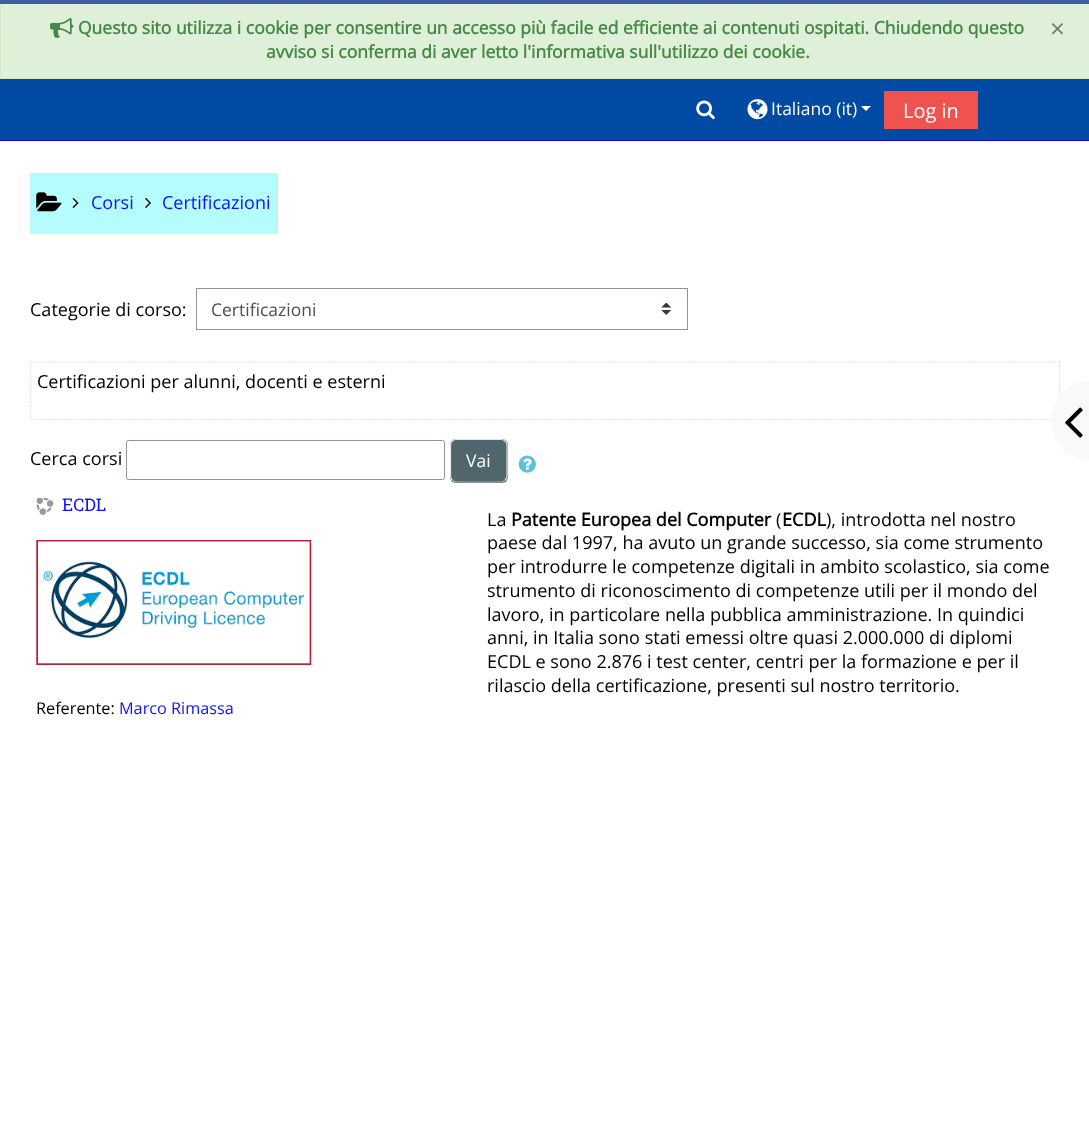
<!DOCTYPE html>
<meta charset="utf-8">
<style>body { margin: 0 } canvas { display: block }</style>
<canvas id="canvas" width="1089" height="1144"></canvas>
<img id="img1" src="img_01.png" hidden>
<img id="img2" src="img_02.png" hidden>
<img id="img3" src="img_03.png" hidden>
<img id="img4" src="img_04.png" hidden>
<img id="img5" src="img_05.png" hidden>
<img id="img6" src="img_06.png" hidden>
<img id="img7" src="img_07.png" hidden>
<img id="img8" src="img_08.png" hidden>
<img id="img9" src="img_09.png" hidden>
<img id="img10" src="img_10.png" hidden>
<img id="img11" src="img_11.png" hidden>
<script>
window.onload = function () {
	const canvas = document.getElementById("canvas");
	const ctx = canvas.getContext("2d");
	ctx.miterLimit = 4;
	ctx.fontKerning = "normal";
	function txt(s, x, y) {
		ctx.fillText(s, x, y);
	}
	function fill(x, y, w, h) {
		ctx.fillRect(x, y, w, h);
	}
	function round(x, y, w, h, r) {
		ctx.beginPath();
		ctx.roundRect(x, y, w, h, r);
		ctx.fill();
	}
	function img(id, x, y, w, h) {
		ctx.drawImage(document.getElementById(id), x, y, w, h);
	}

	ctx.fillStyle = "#FFFFFF";
	fill(0, 0, 1089, 1144);
	ctx.fillStyle = "#DFF0D8";
	fill(1, 4, 1088, 74);
	ctx.strokeStyle = "#D6E9C6";
	ctx.strokeRect(0.5, 0.5, 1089, 78);
	ctx.fillStyle = "#4359A2";
	fill(0, 0, 1089, 4);
	img("img1", 50, 18, 24, 20);
	ctx.fillStyle = "#004AA4";
	fill(0, 79, 1089, 61);
	ctx.fillStyle = "#1300F5";
	fill(0, 140, 1089, 1);
	img("img2", 696, 100, 19, 20);
	img("img3", 747, 99, 21, 21);
	ctx.fillStyle = "#FFFFFF";
	ctx.beginPath();
	ctx.moveTo(861, 106);
	ctx.lineTo(871, 106);
	ctx.lineTo(866, 111);
	ctx.closePath();
	ctx.fill();
	ctx.fillStyle = "#EF5350";
	fill(884, 91, 94, 38);
	ctx.fillStyle = "#B4FCFD";
	fill(30, 173, 248, 61);
	img("img4", 36, 192, 26, 20);
	img("img5", 72, 198, 7, 10);
	img("img6", 145, 198, 6, 10);
	img("img7", 661, 303, 10, 12);
	ctx.strokeStyle = "#8F959E";
	ctx.strokeRect(196.5, 288.5, 491, 41);
	ctx.beginPath();
	ctx.moveTo(30, 362);
	ctx.lineTo(1060, 362);
	ctx.strokeStyle = "#DDDDDD";
	ctx.lineWidth = 1.2;
	ctx.setLineDash([1.25, 1.25]);
	ctx.stroke();
	ctx.beginPath();
	ctx.moveTo(1059.5, 361);
	ctx.lineTo(1059.5, 420);
	ctx.stroke();
	ctx.beginPath();
	ctx.moveTo(30, 419.5);
	ctx.lineTo(1060, 419.5);
	ctx.stroke();
	ctx.beginPath();
	ctx.moveTo(30.5, 361);
	ctx.lineTo(30.5, 420);
	ctx.stroke();
	ctx.beginPath();
	ctx.roundRect(126.5, 440.5, 318, 39, 2);
	ctx.strokeStyle = "#8F959E";
	ctx.lineWidth = 1;
	ctx.setLineDash([]);
	ctx.stroke();
	ctx.fillStyle = "#51666C";
	round(450, 439, 58, 44, 6);
	ctx.beginPath();
	ctx.moveTo(505, 480);
	ctx.bezierCurveTo(504, 481.5, 502.5, 482, 501, 482);
	ctx.lineTo(456, 482);
	ctx.bezierCurveTo(455, 482, 453.5, 481.5, 452.5, 480);
	ctx.strokeStyle = "#B3B3B3";
	ctx.lineWidth = 1.2;
	ctx.stroke();
	ctx.beginPath();
	ctx.moveTo(452.5, 480);
	ctx.bezierCurveTo(451, 479, 450.5, 477.5, 450.5, 476);
	ctx.lineTo(450.5, 445);
	ctx.bezierCurveTo(450.5, 443.5, 451, 442, 452.5, 441);
	ctx.bezierCurveTo(453.5, 440, 455, 439.5, 456, 439.5);
	ctx.lineTo(501, 439.5);
	ctx.bezierCurveTo(502.5, 439.5, 504, 440, 505, 441);
	ctx.bezierCurveTo(506.5, 442, 507, 443.5, 507, 445);
	ctx.lineTo(507, 476);
	ctx.bezierCurveTo(507, 477.5, 506.5, 479, 505, 480);
	ctx.strokeStyle = "#E6E6E6";
	ctx.stroke();
	img("img8", 518, 455, 18, 18);
	img("img9", 36, 498, 18, 17);
	img("img10", 36, 540, 276, 125);
	ctx.fillStyle = "#F9F9F9";
	ctx.beginPath();
	ctx.moveTo(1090, 381);
	ctx.lineTo(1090, 460);
	ctx.bezierCurveTo(1068.5, 460, 1051, 442.5, 1051, 421);
	ctx.lineTo(1051, 420);
	ctx.bezierCurveTo(1051, 398.5, 1068.5, 381, 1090, 381);
	ctx.closePath();
	ctx.fill();
	img("img11", 1065, 407, 18, 31);
	ctx.font = "bold 17.5px Open Sans";
	ctx.fillStyle = "#468847";
	txt("Questo sito utilizza i cookie per consentire un accesso più facile ed efficiente ai contenuti ospitati. Chiudendo questo", 78, 34);
	ctx.font = "26px Open Sans";
	ctx.fillStyle = "#777777";
	txt("×", 1050, 38);
	ctx.font = "bold 17.5px Open Sans";
	ctx.fillStyle = "#468847";
	txt("avviso si conferma di aver letto l'informativa sull'utilizzo dei cookie.", 266, 58);
	ctx.font = "17.5px Open Sans";
	ctx.fillStyle = "#FFFFFF";
	txt("Italiano (it)", 771, 115);
	ctx.font = "20px Open Sans";
	txt("Log in", 903, 118);
	ctx.font = "18.05px Open Sans";
	ctx.fillStyle = "#1010FF";
	txt("Corsi", 91, 209);
	txt("Certificazioni", 162, 209);
	ctx.fillStyle = "#000000";
	txt("Categorie di corso:", 30, 316);
	ctx.font = "17.5px Open Sans";
	ctx.fillStyle = "#495057";
	txt("Certificazioni", 211, 316);
	ctx.font = "18.05px Open Sans";
	ctx.fillStyle = "#000000";
	txt("Certificazioni per alunni, docenti e esterni", 37, 388);
	txt("Cerca corsi", 30, 465);
	ctx.font = "17.5px Open Sans";
	ctx.fillStyle = "#FFFFFF";
	txt("Vai", 466, 467);
	ctx.font = "17.5px Roboto Slab";
	ctx.fillStyle = "#1010FF";
	txt("ECDL", 62, 511);
	ctx.font = "18.05px Open Sans";
	ctx.fillStyle = "#000000";
	txt("La", 487, 526);
	ctx.font = "bold 18.05px Open Sans";
	txt("Patente Europea del Computer", 511, 526);
	ctx.font = "18.05px Open Sans";
	txt("(", 776, 526);
	ctx.font = "bold 18.05px Open Sans";
	txt("ECDL", 782, 526);
	ctx.font = "18.05px Open Sans";
	txt("), introdotta nel nostro", 826, 526);
	txt("paese dal 1997, ha avuto un grande successo, sia come strumento", 487, 549);
	txt("per introdurre le competenze digitali in ambito scolastico, sia come", 487, 573);
	txt("strumento di riconoscimento di competenze utili per il mondo del", 487, 597);
	txt("lavoro, in particolare nella pubblica amministrazione. In quindici", 487, 621);
	txt("anni, in Italia sono stati emessi oltre quasi 2.000.000 di diplomi", 487, 644);
	txt("ECDL e sono 2.876 i test center, centri per la formazione e per il", 487, 668);
	txt("rilascio della certificazione, presenti sul nostro territorio.", 487, 692);
	ctx.font = "16.25px Open Sans";
	txt("Referente:", 36, 714);
	ctx.fillStyle = "#1010FF";
	txt("Marco Rimassa", 119, 714);
};
</script>
